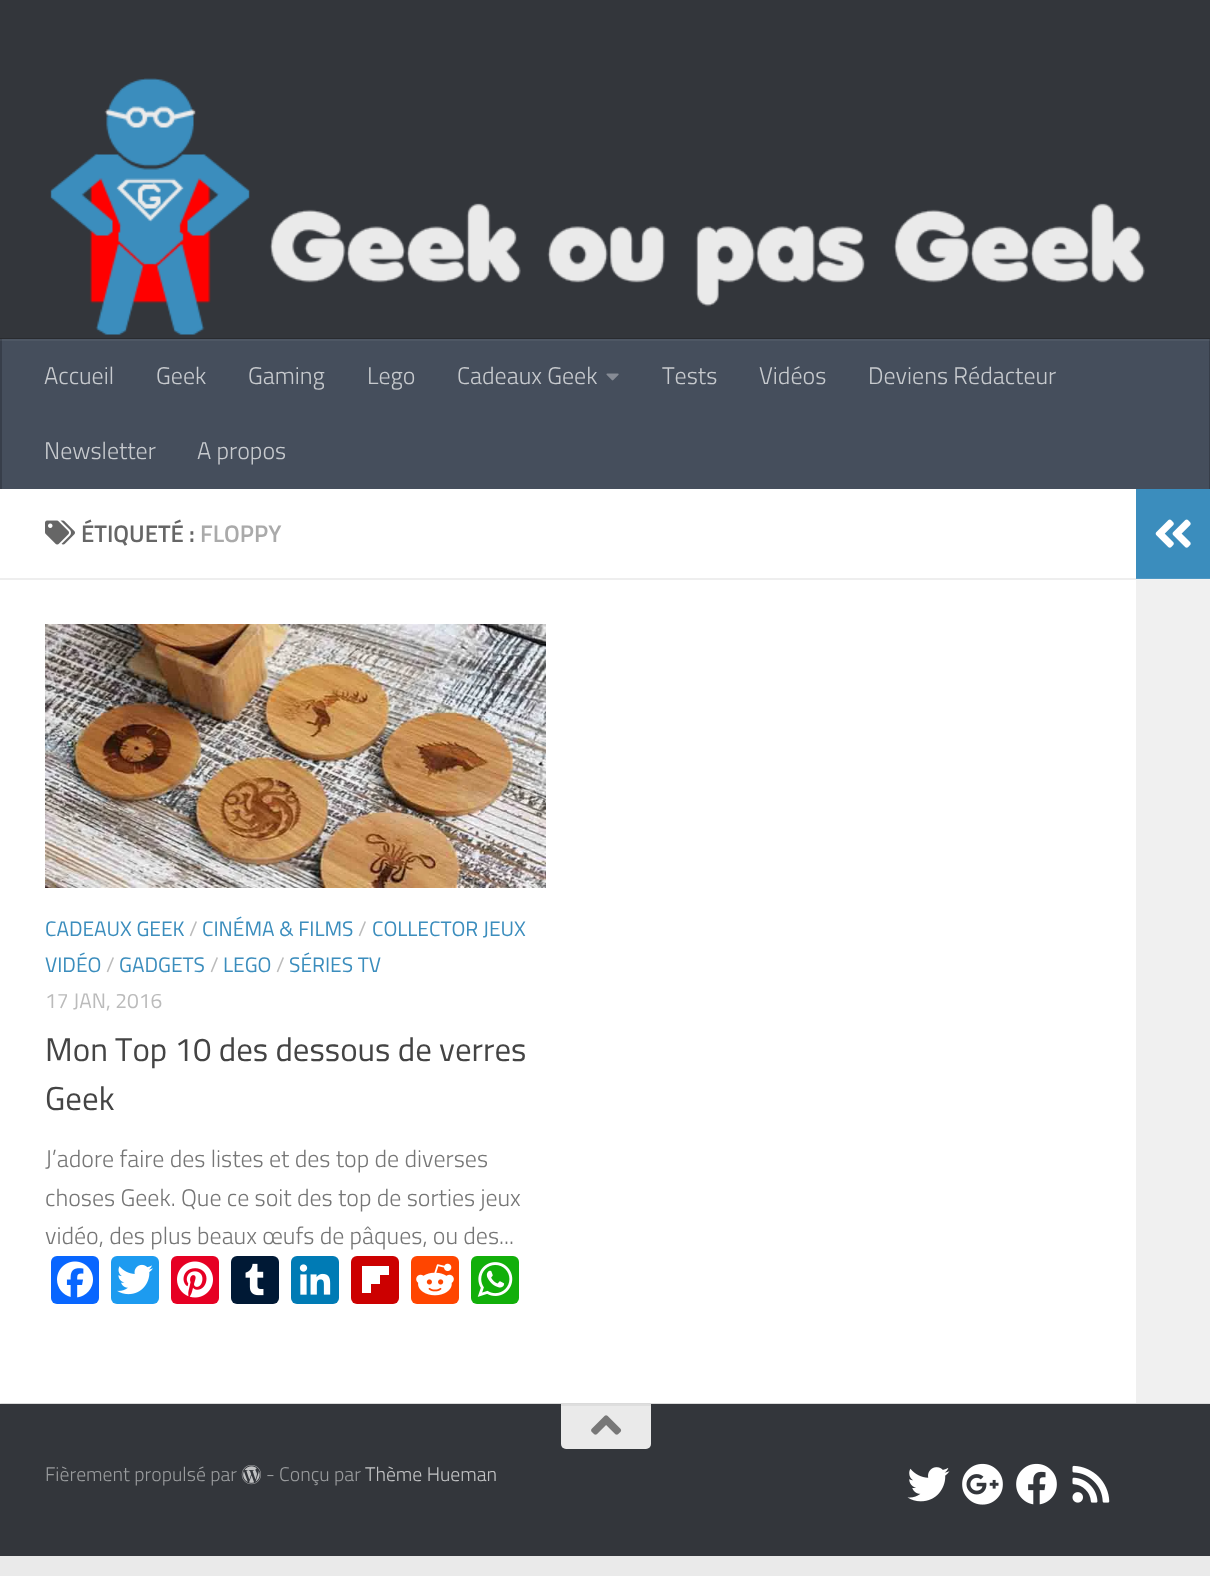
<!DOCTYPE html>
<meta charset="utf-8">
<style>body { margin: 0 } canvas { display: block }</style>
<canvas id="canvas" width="1210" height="1576"></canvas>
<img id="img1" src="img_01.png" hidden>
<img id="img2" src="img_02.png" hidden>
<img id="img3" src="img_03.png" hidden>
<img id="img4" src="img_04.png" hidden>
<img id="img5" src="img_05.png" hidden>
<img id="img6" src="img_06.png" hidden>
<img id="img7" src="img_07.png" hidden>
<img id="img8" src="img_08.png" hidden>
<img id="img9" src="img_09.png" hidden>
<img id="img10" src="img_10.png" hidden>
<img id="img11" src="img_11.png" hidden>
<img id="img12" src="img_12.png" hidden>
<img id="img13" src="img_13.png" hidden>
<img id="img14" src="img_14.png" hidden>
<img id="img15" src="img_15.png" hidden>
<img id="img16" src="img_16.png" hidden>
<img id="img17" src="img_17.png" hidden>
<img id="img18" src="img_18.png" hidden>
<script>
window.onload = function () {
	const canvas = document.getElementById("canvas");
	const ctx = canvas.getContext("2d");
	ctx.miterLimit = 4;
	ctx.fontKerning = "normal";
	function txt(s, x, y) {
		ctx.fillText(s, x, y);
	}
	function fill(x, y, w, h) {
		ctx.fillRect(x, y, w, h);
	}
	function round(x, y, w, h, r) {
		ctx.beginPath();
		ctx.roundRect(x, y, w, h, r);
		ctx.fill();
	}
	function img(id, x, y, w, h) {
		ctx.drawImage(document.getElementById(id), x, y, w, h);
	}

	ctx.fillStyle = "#EAEAEA";
	fill(0, 0, 1210, 1576);
	ctx.fillStyle = "#33363B";
	fill(0, 0, 1210, 338);
	img("img1", 50, 78, 1095, 257);
	ctx.fillStyle = "#292B2F";
	ctx.beginPath();
	ctx.moveTo(0, 338);
	ctx.lineTo(0, 339);
	ctx.lineTo(1210, 339);
	ctx.lineTo(1210, 488);
	ctx.lineTo(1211, 488);
	ctx.lineTo(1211, 338);
	ctx.closePath();
	ctx.fill();
	ctx.fillStyle = "rgba(0, 0, 0, 0.1)";
	ctx.filter = "blur(1px)";
	ctx.beginPath();
	ctx.rect(0, 491, 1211, 913);
	ctx.fill();
	ctx.filter = "none";
	ctx.fillStyle = "#454E5C";
	fill(2, 341, 1207, 148);
	ctx.fillStyle = "#4E5764";
	fill(0, 339, 1210, 2);
	ctx.fillStyle = "#373E4A";
	fill(1209, 339, 1, 150);
	ctx.fillStyle = "#414853";
	fill(1209, 339, 1, 2);
	ctx.fillStyle = "#373E4A";
	fill(0, 339, 2, 150);
	ctx.fillStyle = "#414853";
	fill(0, 339, 2, 2);
	img("img2", 606, 373, 13, 8);
	ctx.fillStyle = "#FFFFFF";
	fill(0, 489, 1136, 914);
	ctx.fillStyle = "#EEEEEE";
	fill(0, 578, 1136, 2);
	img("img3", 45, 520, 30, 25);
	img("img4", 45, 624, 501, 264);
	ctx.fillStyle = "#0866FF";
	round(51, 1256, 48, 48, 6);
	img("img5", 57, 1261, 36, 37);
	ctx.fillStyle = "#1D9BF0";
	round(111, 1256, 48, 48, 6);
	img("img6", 117, 1264, 36, 31);
	ctx.fillStyle = "#E60023";
	round(171, 1256, 48, 48, 6);
	img("img7", 177, 1261, 36, 37);
	ctx.fillStyle = "#001935";
	round(231, 1256, 48, 48, 6);
	img("img8", 245, 1263, 19, 33);
	ctx.fillStyle = "#007BB5";
	round(291, 1256, 48, 48, 6);
	img("img9", 299, 1264, 32, 31);
	ctx.fillStyle = "#CC0000";
	round(351, 1256, 48, 48, 6);
	ctx.fillStyle = "#FFFFFF";
	fill(371, 1275, 9, 9);
	fill(371, 1266, 18, 9);
	fill(362, 1266, 9, 27);
	ctx.fillStyle = "#FF4500";
	round(411, 1256, 48, 48, 6);
	img("img10", 416, 1263, 38, 33);
	ctx.fillStyle = "#12AF0A";
	round(471, 1256, 48, 48, 6);
	img("img11", 477, 1262, 36, 35);
	ctx.fillStyle = "#3B8DBD";
	fill(1136, 489, 74, 89);
	ctx.fillStyle = "#4F98C4";
	fill(1136, 578, 74, 1);
	img("img12", 1155, 519, 36, 29);
	ctx.fillStyle = "#F0F0F0";
	fill(1136, 580, 74, 823);
	ctx.fillStyle = "#F2F2F2";
	fill(1136, 579, 74, 1);
	ctx.fillStyle = "#33363B";
	fill(0, 1404, 1210, 152);
	ctx.fillStyle = "#EAEAEA";
	ctx.beginPath();
	ctx.roundRect(561, 1404, 90, 45, [0, 0, 5, 5]);
	ctx.fill();
	ctx.fillStyle = "#DEDEDE";
	fill(561, 1404, 90, 2);
	img("img13", 591, 1415, 31, 20);
	img("img14", 241, 1465, 20, 20);
	img("img15", 907, 1467, 43, 35);
	img("img16", 962, 1463, 41, 42);
	img("img17", 1016, 1463, 41, 42);
	img("img18", 1072, 1465, 38, 38);
	ctx.font = "300 24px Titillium";
	ctx.fillStyle = "#C7CACE";
	txt("Accueil", 44, 384);
	txt("Geek", 156, 384);
	txt("Gaming", 248, 384);
	txt("Lego", 367, 384);
	txt("Cadeaux Geek", 457, 384);
	txt("Tests", 662, 384);
	txt("Vidéos", 759, 384);
	txt("Deviens Rédacteur", 868, 384);
	txt("Newsletter", 44, 459);
	txt("A propos", 197, 459);
	ctx.font = "600 24px Titillium";
	ctx.fillStyle = "#666666";
	txt("ÉTIQUETÉ :", 81, 542);
	ctx.fillStyle = "#AAAAAA";
	txt("FLOPPY", 200, 542);
	ctx.font = "21px Titillium";
	ctx.fillStyle = "#3B8DBD";
	txt("CADEAUX GEEK", 45, 936);
	ctx.fillStyle = "#BBBBBB";
	txt("/", 189, 936);
	ctx.fillStyle = "#3B8DBD";
	txt("CINÉMA & FILMS", 202, 936);
	ctx.fillStyle = "#BBBBBB";
	txt("/", 358, 936);
	ctx.fillStyle = "#3B8DBD";
	txt("COLLECTOR JEUX", 372, 936);
	txt("VIDÉO", 45, 972);
	ctx.fillStyle = "#BBBBBB";
	txt("/", 106, 972);
	ctx.fillStyle = "#3B8DBD";
	txt("GADGETS", 119, 972);
	ctx.fillStyle = "#BBBBBB";
	txt("/", 210, 972);
	ctx.fillStyle = "#3B8DBD";
	txt("LEGO", 223, 972);
	ctx.fillStyle = "#BBBBBB";
	txt("/", 276, 972);
	ctx.fillStyle = "#3B8DBD";
	txt("SÉRIES TV", 289, 972);
	ctx.fillStyle = "#BBBBBB";
	txt("17 JAN, 2016", 45, 1008);
	ctx.font = "33px Titillium";
	ctx.fillStyle = "#444444";
	txt("Mon Top 10 des dessous de verres", 45, 1061);
	txt("Geek", 45, 1110);
	ctx.font = "300 24px Titillium";
	ctx.fillStyle = "#767676";
	txt("J’adore faire des listes et des top de diverses", 45, 1167);
	txt("choses Geek. Que ce soit des top de sorties jeux", 45, 1206);
	txt("vidéo, des plus beaux œufs de pâques, ou des...", 45, 1244);
	ctx.font = "300 19.75px Titillium";
	ctx.fillStyle = "#999B9D";
	txt("Fièrement propulsé par", 45, 1481);
	txt("- Conçu par", 266, 1481);
	ctx.fillStyle = "#C2C3C4";
	txt("Thème Hueman", 365, 1481);
};
</script>
